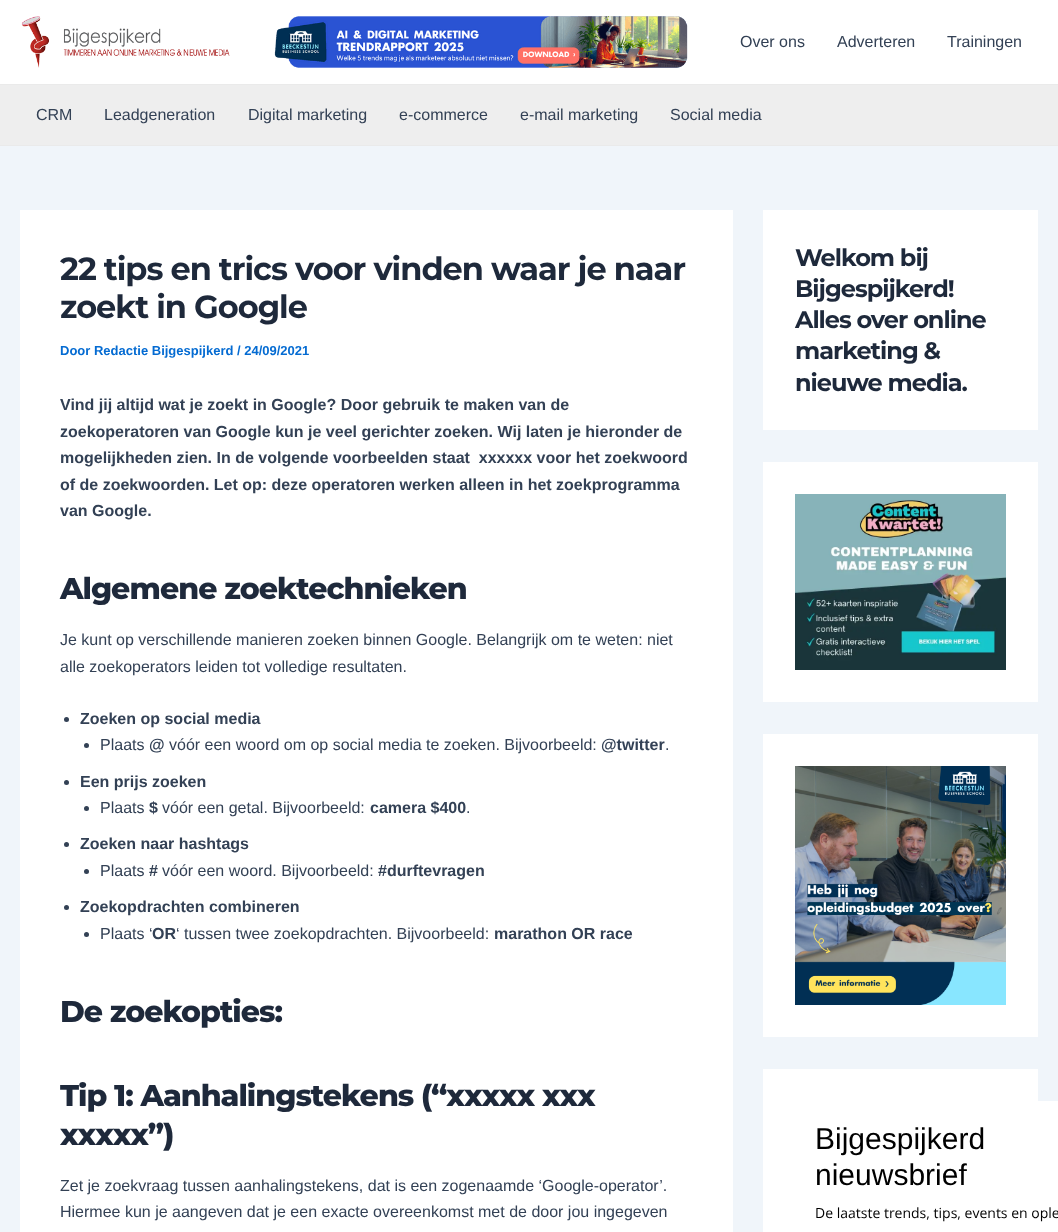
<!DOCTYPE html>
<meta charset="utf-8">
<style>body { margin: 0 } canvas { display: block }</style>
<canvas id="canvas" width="1058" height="1232"></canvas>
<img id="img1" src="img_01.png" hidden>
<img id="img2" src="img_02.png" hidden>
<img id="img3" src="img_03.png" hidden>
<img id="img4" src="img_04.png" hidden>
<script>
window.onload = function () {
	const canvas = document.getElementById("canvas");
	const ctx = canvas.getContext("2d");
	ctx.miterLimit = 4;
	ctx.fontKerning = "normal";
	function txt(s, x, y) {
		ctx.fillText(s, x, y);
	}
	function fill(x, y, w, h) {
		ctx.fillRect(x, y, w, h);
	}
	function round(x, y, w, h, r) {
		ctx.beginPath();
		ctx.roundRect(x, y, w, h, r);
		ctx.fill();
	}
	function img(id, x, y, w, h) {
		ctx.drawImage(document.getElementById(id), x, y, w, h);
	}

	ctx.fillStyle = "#F0F5FA";
	fill(0, 0, 1058, 1232);
	ctx.fillStyle = "#FFFFFF";
	fill(0, 0, 1058, 84);
	ctx.fillStyle = "#EAEAEA";
	fill(0, 84, 1058, 1);
	img("img1", 21, 16, 209, 52);
	img("img2", 274, 16, 414, 52);
	ctx.fillStyle = "#EEEEEE";
	fill(0, 85, 1058, 60);
	ctx.fillStyle = "#EAEAEA";
	fill(0, 145, 1058, 1);
	ctx.fillStyle = "#FFFFFF";
	fill(20, 210, 713, 1022);
	ctx.fillStyle = "#334155";
	ctx.beginPath();
	ctx.arc(66.5, 719.5, 2.5, 0, Math.PI * 2);
	ctx.fill();
	ctx.beginPath();
	ctx.arc(86.5, 745.5, 2.5, 0, Math.PI * 2);
	ctx.fill();
	ctx.beginPath();
	ctx.arc(66.5, 782.5, 2.5, 0, Math.PI * 2);
	ctx.fill();
	ctx.beginPath();
	ctx.arc(86.5, 808.5, 2.5, 0, Math.PI * 2);
	ctx.fill();
	ctx.beginPath();
	ctx.arc(66.5, 844.5, 2.5, 0, Math.PI * 2);
	ctx.fill();
	ctx.beginPath();
	ctx.arc(86.5, 871.5, 2.5, 0, Math.PI * 2);
	ctx.fill();
	ctx.beginPath();
	ctx.arc(66.5, 907.5, 2.5, 0, Math.PI * 2);
	ctx.fill();
	ctx.beginPath();
	ctx.arc(86.5, 934.5, 2.5, 0, Math.PI * 2);
	ctx.fill();
	ctx.fillStyle = "#FFFFFF";
	fill(763, 210, 275, 220);
	fill(763, 462, 275, 240);
	img("img3", 795, 494, 211, 176);
	fill(763, 734, 275, 303);
	img("img4", 795, 766, 211, 239);
	fill(763, 1069, 275, 163);
	round(795, 1101, 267, 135, 4);
	ctx.font = "16px Liberation Sans";
	ctx.fillStyle = "#334155";
	txt("Over ons", 740, 47);
	txt("Adverteren", 837, 47);
	txt("Trainingen", 947, 47);
	txt("CRM", 36, 120);
	txt("Leadgeneration", 104, 120);
	txt("Digital marketing", 248, 120);
	txt("e-commerce", 399, 120);
	txt("e-mail marketing", 520, 120);
	txt("Social media", 670, 120);
	ctx.letterSpacing = "-1px";
	ctx.font = "bold 32px Montserrat";
	ctx.fillStyle = "#1E293B";
	txt("22 tips en trics voor vinden waar je naar", 60, 280);
	txt("zoekt in Google", 60, 318);
	ctx.letterSpacing = "0px";
	ctx.font = "bold 13px Liberation Sans";
	ctx.fillStyle = "#046BD2";
	txt("Door Redactie Bijgespijkerd / 24/09/2021", 60, 355);
	ctx.font = "bold 16px Liberation Sans";
	ctx.fillStyle = "#334155";
	txt("Vind jij altijd wat je zoekt in Google? Door gebruik te maken van de", 60, 410);
	txt("zoekoperatoren van Google kun je veel gerichter zoeken. Wij laten je hieronder de", 60, 437);
	txt("mogelijkheden zien. In de volgende voorbeelden staat  xxxxxx voor het zoekwoord", 60, 463);
	txt("of de zoekwoorden. Let op: deze operatoren werken alleen in het zoekprogramma", 60, 490);
	txt("van Google.", 60, 516);
	ctx.letterSpacing = "-1px";
	ctx.font = "100 30px Montserrat";
	ctx.fillStyle = "#1E293B";
	txt("Algemene zoektechnieken", 60, 599);
	ctx.letterSpacing = "0px";
	ctx.font = "16px Liberation Sans";
	ctx.fillStyle = "#334155";
	txt("Je kunt op verschillende manieren zoeken binnen Google. Belangrijk om te weten: niet", 60, 645);
	txt("alle zoekoperators leiden tot volledige resultaten.", 60, 672);
	ctx.font = "bold 16px Liberation Sans";
	txt("Zoeken op social media", 80, 724);
	ctx.font = "16px Liberation Sans";
	txt("Plaats", 100, 750);
	ctx.font = "bold 16px Liberation Sans";
	txt("@", 149, 750);
	ctx.font = "16px Liberation Sans";
	txt("vóór een woord om op social media te zoeken. Bijvoorbeeld:", 169, 750);
	ctx.font = "bold 16px Liberation Sans";
	txt("@twitter", 601, 750);
	ctx.font = "16px Liberation Sans";
	txt(".", 665, 750);
	ctx.font = "bold 16px Liberation Sans";
	txt("Een prijs zoeken", 80, 787);
	ctx.font = "16px Liberation Sans";
	txt("Plaats", 100, 813);
	ctx.font = "bold 16px Liberation Sans";
	txt("$", 149, 813);
	ctx.font = "16px Liberation Sans";
	txt("vóór een getal. Bijvoorbeeld:", 162, 813);
	ctx.font = "bold 16px Liberation Sans";
	txt("camera $400", 370, 813);
	ctx.font = "16px Liberation Sans";
	txt(".", 466, 813);
	ctx.font = "bold 16px Liberation Sans";
	txt("Zoeken naar hashtags", 80, 849);
	ctx.font = "16px Liberation Sans";
	txt("Plaats", 100, 876);
	ctx.font = "bold 16px Liberation Sans";
	txt("#", 149, 876);
	ctx.font = "16px Liberation Sans";
	txt("vóór een woord. Bijvoorbeeld:", 162, 876);
	ctx.font = "bold 16px Liberation Sans";
	txt("#durftevragen", 378, 876);
	txt("Zoekopdrachten combineren", 80, 912);
	ctx.font = "16px Liberation Sans";
	txt("Plaats ‘", 100, 939);
	ctx.font = "bold 16px Liberation Sans";
	txt("OR", 152, 939);
	ctx.font = "16px Liberation Sans";
	txt("‘ tussen twee zoekopdrachten. Bijvoorbeeld:", 176, 939);
	ctx.font = "bold 16px Liberation Sans";
	txt("marathon OR race", 494, 939);
	ctx.letterSpacing = "-1px";
	ctx.font = "100 30px Montserrat";
	ctx.fillStyle = "#1E293B";
	txt("De zoekopties:", 60, 1022);
	txt("Tip 1: Aanhalingstekens (“xxxxx xxx", 60, 1106);
	txt("xxxxx”)", 60, 1145);
	ctx.letterSpacing = "0px";
	ctx.font = "16px Liberation Sans";
	ctx.fillStyle = "#334155";
	txt("Zet je zoekvraag tussen aanhalingstekens, dat is een zogenaamde ‘Google-operator’.", 60, 1191);
	txt("Hiermee kun je aangeven dat je een exacte overeenkomst met de door jou ingegeven", 60, 1217);
	ctx.letterSpacing = "-1px";
	ctx.font = "bold 24px Montserrat";
	ctx.fillStyle = "#1E293B";
	txt("Welkom bij", 795, 266);
	txt("Bijgespijkerd!", 795, 297);
	txt("Alles over online", 795, 328);
	txt("marketing &", 795, 359);
	txt("nieuwe media.", 795, 391);
	ctx.letterSpacing = "0px";
	ctx.font = "30px Liberation Sans";
	ctx.fillStyle = "#000000";
	txt("Bijgespijkerd", 815, 1149);
	txt("nieuwsbrief", 815, 1185);
	ctx.font = "14px Open Sans";
	txt("De laatste trends, tips, events en ople", 815, 1218);
};
</script>
